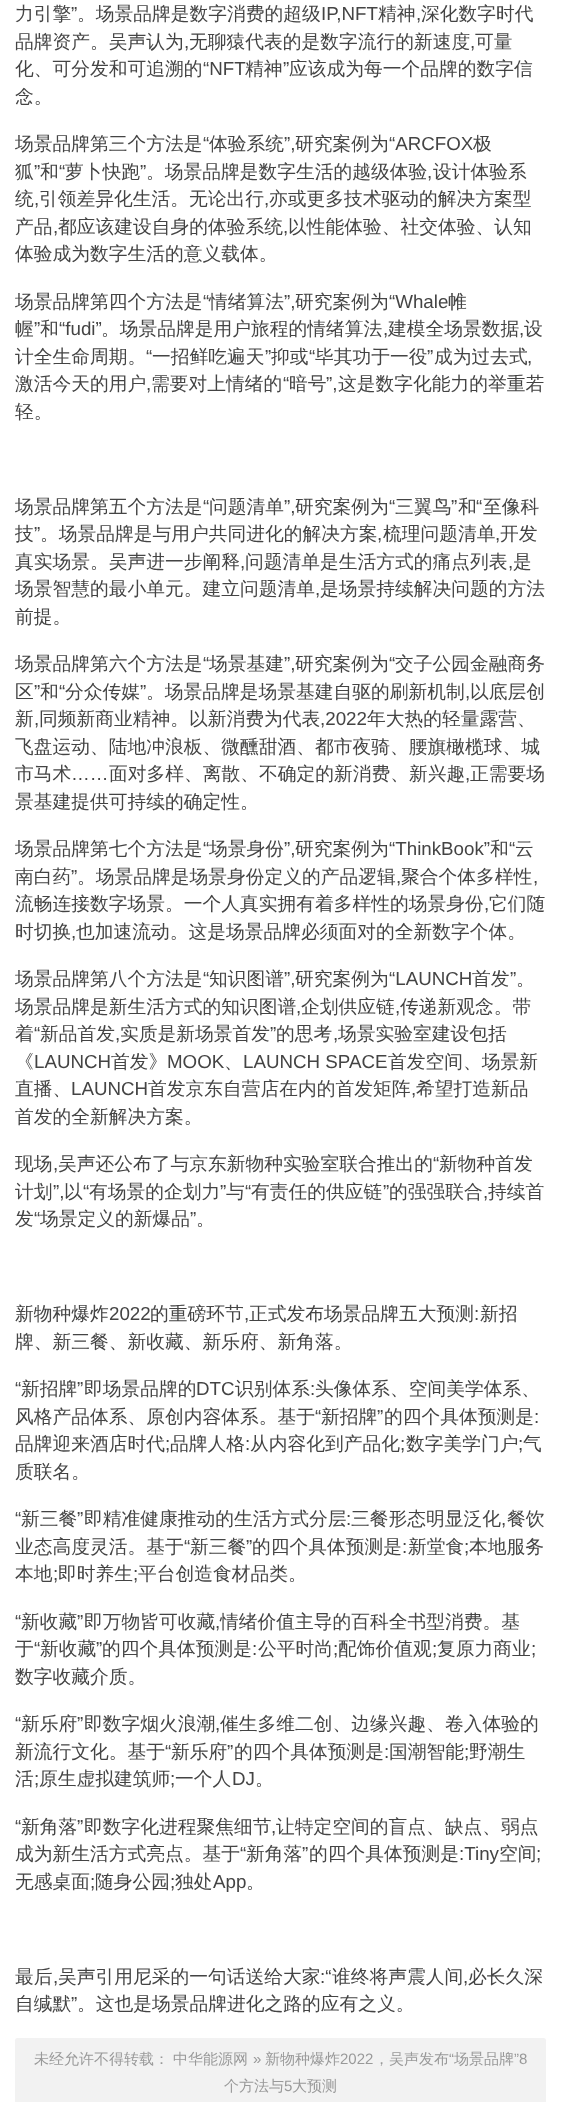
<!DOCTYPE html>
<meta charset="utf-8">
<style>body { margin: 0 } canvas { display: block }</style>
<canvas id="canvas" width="561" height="2102"></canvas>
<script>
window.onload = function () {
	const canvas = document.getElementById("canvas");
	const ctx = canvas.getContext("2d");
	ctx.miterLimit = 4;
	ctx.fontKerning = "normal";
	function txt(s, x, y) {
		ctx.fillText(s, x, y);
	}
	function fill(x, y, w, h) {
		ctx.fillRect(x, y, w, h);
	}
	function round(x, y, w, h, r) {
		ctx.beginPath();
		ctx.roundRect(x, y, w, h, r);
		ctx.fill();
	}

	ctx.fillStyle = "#FFFFFF";
	fill(0, 0, 561, 2102);
	ctx.fillStyle = "#F2F2F2";
	round(15, 2038, 531, 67, 2.5);
	ctx.font = "500 18.75px WenQuanYi Zen Hei";
	ctx.fillStyle = "#444444";
	txt("力引擎", 15, 20);
	ctx.font = "18.75px Liberation Sans";
	txt("”", 71, 20);
	ctx.font = "500 18.75px WenQuanYi Zen Hei";
	txt("。场景品牌是数字消费的超级", 77, 20);
	ctx.font = "18.75px Liberation Sans";
	txt("IP,NFT", 321, 20);
	ctx.font = "500 18.75px WenQuanYi Zen Hei";
	txt("精神", 378, 20);
	ctx.font = "18.75px Liberation Sans";
	txt(",", 416, 20);
	ctx.font = "500 18.75px WenQuanYi Zen Hei";
	txt("深化数字时代", 421, 20);
	txt("品牌资产。吴声认为", 15, 48);
	ctx.font = "18.75px Liberation Sans";
	txt(",", 184, 48);
	ctx.font = "500 18.75px WenQuanYi Zen Hei";
	txt("无聊猿代表的是数字流行的新速度", 189, 48);
	ctx.font = "18.75px Liberation Sans";
	txt(",", 470, 48);
	ctx.font = "500 18.75px WenQuanYi Zen Hei";
	txt("可量", 475, 48);
	txt("化、可分发和可追溯的", 15, 75);
	ctx.font = "18.75px Liberation Sans";
	txt("“NFT", 203, 75);
	ctx.font = "500 18.75px WenQuanYi Zen Hei";
	txt("精神", 245, 75);
	ctx.font = "18.75px Liberation Sans";
	txt("”", 283, 75);
	ctx.font = "500 18.75px WenQuanYi Zen Hei";
	txt("应该成为每一个品牌的数字信", 289, 75);
	txt("念。", 15, 103);
	txt("场景品牌第三个方法是", 15, 150);
	ctx.font = "18.75px Liberation Sans";
	txt("“", 203, 150);
	ctx.font = "500 18.75px WenQuanYi Zen Hei";
	txt("体验系统", 209, 150);
	ctx.font = "18.75px Liberation Sans";
	txt("”,", 284, 150);
	ctx.font = "500 18.75px WenQuanYi Zen Hei";
	txt("研究案例为", 295, 150);
	ctx.font = "18.75px Liberation Sans";
	txt("“ARCFOX", 389, 150);
	ctx.font = "500 18.75px WenQuanYi Zen Hei";
	txt("极", 473, 150);
	txt("狐", 15, 178);
	ctx.font = "18.75px Liberation Sans";
	txt("”", 34, 178);
	ctx.font = "500 18.75px WenQuanYi Zen Hei";
	txt("和", 40, 178);
	ctx.font = "18.75px Liberation Sans";
	txt("“", 59, 178);
	ctx.font = "500 18.75px WenQuanYi Zen Hei";
	txt("萝卜快跑", 65, 178);
	ctx.font = "18.75px Liberation Sans";
	txt("”", 140, 178);
	ctx.font = "500 18.75px WenQuanYi Zen Hei";
	txt("。场景品牌是数字生活的越级体验", 146, 178);
	txt("设计体验系", 433, 178);
	ctx.font = "18.75px Liberation Sans";
	txt(",", 427, 178);
	ctx.font = "500 18.75px WenQuanYi Zen Hei";
	txt("统", 15, 205);
	ctx.font = "18.75px Liberation Sans";
	txt(",", 34, 205);
	ctx.font = "500 18.75px WenQuanYi Zen Hei";
	txt("引领差异化生活。无论出行", 39, 205);
	ctx.font = "18.75px Liberation Sans";
	txt(",", 264, 205);
	ctx.font = "500 18.75px WenQuanYi Zen Hei";
	txt("亦或更多技术驱动的解决方案型", 269, 205);
	txt("产品", 15, 233);
	ctx.font = "18.75px Liberation Sans";
	txt(",", 53, 233);
	ctx.font = "500 18.75px WenQuanYi Zen Hei";
	txt("都应该建设自身的体验系统", 58, 233);
	ctx.font = "18.75px Liberation Sans";
	txt(",", 283, 233);
	ctx.font = "500 18.75px WenQuanYi Zen Hei";
	txt("以性能体验、社交体验、认知", 288, 233);
	txt("体验成为数字生活的意义载体。", 15, 260);
	txt("场景品牌第四个方法是", 15, 308);
	ctx.font = "18.75px Liberation Sans";
	txt("“", 203, 308);
	ctx.font = "500 18.75px WenQuanYi Zen Hei";
	txt("情绪算法", 209, 308);
	ctx.font = "18.75px Liberation Sans";
	txt("”,", 284, 308);
	ctx.font = "500 18.75px WenQuanYi Zen Hei";
	txt("研究案例为", 295, 308);
	ctx.font = "18.75px Liberation Sans";
	txt("“Whale", 389, 308);
	ctx.font = "500 18.75px WenQuanYi Zen Hei";
	txt("帷", 448, 308);
	txt("幄", 15, 335);
	ctx.font = "18.75px Liberation Sans";
	txt("”", 34, 335);
	ctx.font = "500 18.75px WenQuanYi Zen Hei";
	txt("和", 40, 335);
	ctx.font = "18.75px Liberation Sans";
	txt("“fudi”", 59, 335);
	ctx.font = "500 18.75px WenQuanYi Zen Hei";
	txt("。场景品牌是用户旅程的情绪算法", 101, 335);
	txt("建模全场景数据", 388, 335);
	txt("设", 524, 335);
	ctx.font = "18.75px Liberation Sans";
	txt(",", 383, 335);
	txt(",", 519, 335);
	ctx.font = "500 18.75px WenQuanYi Zen Hei";
	txt("计全生命周期。", 15, 363);
	ctx.font = "18.75px Liberation Sans";
	txt("“", 146, 363);
	ctx.font = "500 18.75px WenQuanYi Zen Hei";
	txt("一招鲜吃遍天", 152, 363);
	ctx.font = "18.75px Liberation Sans";
	txt("”", 265, 363);
	ctx.font = "500 18.75px WenQuanYi Zen Hei";
	txt("抑或", 271, 363);
	ctx.font = "18.75px Liberation Sans";
	txt("“", 309, 363);
	ctx.font = "500 18.75px WenQuanYi Zen Hei";
	txt("毕其功于一役", 315, 363);
	ctx.font = "18.75px Liberation Sans";
	txt("”", 427, 363);
	ctx.font = "500 18.75px WenQuanYi Zen Hei";
	txt("成为过去式", 434, 363);
	ctx.font = "18.75px Liberation Sans";
	txt(",", 527, 363);
	ctx.font = "500 18.75px WenQuanYi Zen Hei";
	txt("激活今天的用户", 15, 390);
	ctx.font = "18.75px Liberation Sans";
	txt(",", 146, 390);
	ctx.font = "500 18.75px WenQuanYi Zen Hei";
	txt("需要对上情绪的", 151, 390);
	ctx.font = "18.75px Liberation Sans";
	txt("“", 283, 390);
	ctx.font = "500 18.75px WenQuanYi Zen Hei";
	txt("暗号", 289, 390);
	ctx.font = "18.75px Liberation Sans";
	txt("”,", 326, 390);
	ctx.font = "500 18.75px WenQuanYi Zen Hei";
	txt("这是数字化能力的举重若", 338, 390);
	txt("轻。", 15, 418);
	txt("场景品牌第五个方法是", 15, 513);
	ctx.font = "18.75px Liberation Sans";
	txt("“", 203, 513);
	ctx.font = "500 18.75px WenQuanYi Zen Hei";
	txt("问题清单", 209, 513);
	ctx.font = "18.75px Liberation Sans";
	txt("”,", 284, 513);
	ctx.font = "500 18.75px WenQuanYi Zen Hei";
	txt("研究案例为", 295, 513);
	ctx.font = "18.75px Liberation Sans";
	txt("“", 389, 513);
	ctx.font = "500 18.75px WenQuanYi Zen Hei";
	txt("三翼鸟", 395, 513);
	ctx.font = "18.75px Liberation Sans";
	txt("”", 451, 513);
	ctx.font = "500 18.75px WenQuanYi Zen Hei";
	txt("和", 458, 513);
	ctx.font = "18.75px Liberation Sans";
	txt("“", 476, 513);
	ctx.font = "500 18.75px WenQuanYi Zen Hei";
	txt("至像科", 483, 513);
	txt("技", 15, 540);
	ctx.font = "18.75px Liberation Sans";
	txt("”", 34, 540);
	ctx.font = "500 18.75px WenQuanYi Zen Hei";
	txt("。场景品牌是与用户共同进化的解决方案", 40, 540);
	txt("梳理问题清单", 383, 540);
	txt("开发", 500, 540);
	ctx.font = "18.75px Liberation Sans";
	txt(",", 377, 540);
	txt(",", 495, 540);
	ctx.font = "500 18.75px WenQuanYi Zen Hei";
	txt("真实场景。吴声进一步阐释", 15, 568);
	ctx.font = "18.75px Liberation Sans";
	txt(",", 240, 568);
	ctx.font = "500 18.75px WenQuanYi Zen Hei";
	txt("问题清单是生活方式的痛点列表", 245, 568);
	ctx.font = "18.75px Liberation Sans";
	txt(",", 508, 568);
	ctx.font = "500 18.75px WenQuanYi Zen Hei";
	txt("是", 513, 568);
	txt("场景智慧的最小单元。建立问题清单", 15, 595);
	ctx.font = "18.75px Liberation Sans";
	txt(",", 315, 595);
	ctx.font = "500 18.75px WenQuanYi Zen Hei";
	txt("是场景持续解决问题的方法", 320, 595);
	txt("前提。", 15, 623);
	txt("场景品牌第六个方法是", 15, 670);
	ctx.font = "18.75px Liberation Sans";
	txt("“", 203, 670);
	ctx.font = "500 18.75px WenQuanYi Zen Hei";
	txt("场景基建", 209, 670);
	ctx.font = "18.75px Liberation Sans";
	txt("”,", 284, 670);
	ctx.font = "500 18.75px WenQuanYi Zen Hei";
	txt("研究案例为", 295, 670);
	ctx.font = "18.75px Liberation Sans";
	txt("“", 389, 670);
	ctx.font = "500 18.75px WenQuanYi Zen Hei";
	txt("交子公园金融商务", 395, 670);
	txt("区", 15, 698);
	ctx.font = "18.75px Liberation Sans";
	txt("”", 34, 698);
	ctx.font = "500 18.75px WenQuanYi Zen Hei";
	txt("和", 40, 698);
	ctx.font = "18.75px Liberation Sans";
	txt("“", 59, 698);
	ctx.font = "500 18.75px WenQuanYi Zen Hei";
	txt("分众传媒", 65, 698);
	ctx.font = "18.75px Liberation Sans";
	txt("”", 140, 698);
	ctx.font = "500 18.75px WenQuanYi Zen Hei";
	txt("。场景品牌是场景基建自驱的刷新机制", 146, 698);
	txt("以底层创", 470, 698);
	ctx.font = "18.75px Liberation Sans";
	txt(",", 465, 698);
	ctx.font = "500 18.75px WenQuanYi Zen Hei";
	txt("新", 15, 725);
	ctx.font = "18.75px Liberation Sans";
	txt(",", 34, 725);
	ctx.font = "500 18.75px WenQuanYi Zen Hei";
	txt("同频新商业精神。以新消费为代表", 39, 725);
	ctx.font = "18.75px Liberation Sans";
	txt(",2022", 320, 725);
	ctx.font = "500 18.75px WenQuanYi Zen Hei";
	txt("年大热的轻量露营、", 367, 725);
	txt("飞盘运动、陆地冲浪板、微醺甜酒、都市夜骑、腰旗橄榄球、城", 15, 753);
	txt("市马术", 15, 780);
	ctx.font = "18.75px Liberation Sans";
	txt("……", 71, 780);
	ctx.font = "500 18.75px WenQuanYi Zen Hei";
	txt("面对多样、离散、不确定的新消费、新兴趣", 109, 780);
	ctx.font = "18.75px Liberation Sans";
	txt(",", 465, 780);
	ctx.font = "500 18.75px WenQuanYi Zen Hei";
	txt("正需要场", 470, 780);
	txt("景基建提供可持续的确定性。", 15, 808);
	txt("场景品牌第七个方法是", 15, 855);
	ctx.font = "18.75px Liberation Sans";
	txt("“", 203, 855);
	ctx.font = "500 18.75px WenQuanYi Zen Hei";
	txt("场景身份", 209, 855);
	ctx.font = "18.75px Liberation Sans";
	txt("”,", 284, 855);
	ctx.font = "500 18.75px WenQuanYi Zen Hei";
	txt("研究案例为", 295, 855);
	ctx.font = "18.75px Liberation Sans";
	txt("“ThinkBook”", 389, 855);
	ctx.font = "500 18.75px WenQuanYi Zen Hei";
	txt("和", 490, 855);
	ctx.font = "18.75px Liberation Sans";
	txt("“", 509, 855);
	ctx.font = "500 18.75px WenQuanYi Zen Hei";
	txt("云", 515, 855);
	txt("南白药", 15, 883);
	ctx.font = "18.75px Liberation Sans";
	txt("”", 71, 883);
	ctx.font = "500 18.75px WenQuanYi Zen Hei";
	txt("。场景品牌是场景身份定义的产品逻辑", 77, 883);
	txt("聚合个体多样性", 401, 883);
	ctx.font = "18.75px Liberation Sans";
	txt(",", 396, 883);
	txt(",", 533, 883);
	ctx.font = "500 18.75px WenQuanYi Zen Hei";
	txt("流畅连接数字场景。一个人真实拥有着多样性的场景身份", 15, 910);
	ctx.font = "18.75px Liberation Sans";
	txt(",", 484, 910);
	ctx.font = "500 18.75px WenQuanYi Zen Hei";
	txt("它们随", 489, 910);
	txt("时切换", 15, 938);
	ctx.font = "18.75px Liberation Sans";
	txt(",", 71, 938);
	ctx.font = "500 18.75px WenQuanYi Zen Hei";
	txt("也加速流动。这是场景品牌必须面对的全新数字个体。", 76, 938);
	txt("场景品牌第八个方法是", 15, 985);
	ctx.font = "18.75px Liberation Sans";
	txt("“", 203, 985);
	ctx.font = "500 18.75px WenQuanYi Zen Hei";
	txt("知识图谱", 209, 985);
	ctx.font = "18.75px Liberation Sans";
	txt("”,", 284, 985);
	ctx.font = "500 18.75px WenQuanYi Zen Hei";
	txt("研究案例为", 295, 985);
	ctx.font = "18.75px Liberation Sans";
	txt("“LAUNCH", 389, 985);
	ctx.font = "500 18.75px WenQuanYi Zen Hei";
	txt("首发", 472, 985);
	ctx.font = "18.75px Liberation Sans";
	txt("”", 510, 985);
	ctx.font = "500 18.75px WenQuanYi Zen Hei";
	txt("。", 516, 985);
	txt("场景品牌是新生活方式的知识图谱", 15, 1013);
	ctx.font = "18.75px Liberation Sans";
	txt(",", 296, 1013);
	ctx.font = "500 18.75px WenQuanYi Zen Hei";
	txt("企划供应链", 301, 1013);
	ctx.font = "18.75px Liberation Sans";
	txt(",", 395, 1013);
	ctx.font = "500 18.75px WenQuanYi Zen Hei";
	txt("传递新观念。带", 400, 1013);
	txt("着", 15, 1040);
	ctx.font = "18.75px Liberation Sans";
	txt("“", 34, 1040);
	ctx.font = "500 18.75px WenQuanYi Zen Hei";
	txt("新品首发", 40, 1040);
	txt("实质是新场景首发", 120, 1040);
	ctx.font = "18.75px Liberation Sans";
	txt("”", 270, 1040);
	ctx.font = "500 18.75px WenQuanYi Zen Hei";
	txt("的思考", 276, 1040);
	txt("场景实验室建设包括", 338, 1040);
	ctx.font = "18.75px Liberation Sans";
	txt(",", 115, 1040);
	txt(",", 333, 1040);
	ctx.font = "500 18.75px WenQuanYi Zen Hei";
	txt("《", 15, 1068);
	ctx.font = "18.75px Liberation Sans";
	txt("LAUNCH", 34, 1068);
	ctx.font = "500 18.75px WenQuanYi Zen Hei";
	txt("首发》", 111, 1068);
	ctx.font = "18.75px Liberation Sans";
	txt("MOOK", 167, 1068);
	ctx.font = "500 18.75px WenQuanYi Zen Hei";
	txt("、", 224, 1068);
	ctx.font = "18.75px Liberation Sans";
	txt("LAUNCH SPACE", 243, 1068);
	ctx.font = "500 18.75px WenQuanYi Zen Hei";
	txt("首发空间、场景新", 388, 1068);
	txt("直播、", 15, 1095);
	ctx.font = "18.75px Liberation Sans";
	txt("LAUNCH", 71, 1095);
	ctx.font = "500 18.75px WenQuanYi Zen Hei";
	txt("首发京东自营店在内的首发矩阵", 148, 1095);
	ctx.font = "18.75px Liberation Sans";
	txt(",", 411, 1095);
	ctx.font = "500 18.75px WenQuanYi Zen Hei";
	txt("希望打造新品", 416, 1095);
	txt("首发的全新解决方案。", 15, 1123);
	txt("现场", 15, 1170);
	txt("吴声还公布了与京东新物种实验室联合推出的", 58, 1170);
	ctx.font = "18.75px Liberation Sans";
	txt("“", 433, 1170);
	ctx.font = "500 18.75px WenQuanYi Zen Hei";
	txt("新物种首发", 439, 1170);
	ctx.font = "18.75px Liberation Sans";
	txt(",", 53, 1170);
	ctx.font = "500 18.75px WenQuanYi Zen Hei";
	txt("计划", 15, 1198);
	ctx.font = "18.75px Liberation Sans";
	txt("”,", 53, 1198);
	ctx.font = "500 18.75px WenQuanYi Zen Hei";
	txt("以", 64, 1198);
	ctx.font = "18.75px Liberation Sans";
	txt("“", 83, 1198);
	ctx.font = "500 18.75px WenQuanYi Zen Hei";
	txt("有场景的企划力", 89, 1198);
	ctx.font = "18.75px Liberation Sans";
	txt("”", 220, 1198);
	ctx.font = "500 18.75px WenQuanYi Zen Hei";
	txt("与", 226, 1198);
	ctx.font = "18.75px Liberation Sans";
	txt("“", 245, 1198);
	ctx.font = "500 18.75px WenQuanYi Zen Hei";
	txt("有责任的供应链", 251, 1198);
	ctx.font = "18.75px Liberation Sans";
	txt("”", 383, 1198);
	ctx.font = "500 18.75px WenQuanYi Zen Hei";
	txt("的强强联合", 389, 1198);
	txt("持续首", 488, 1198);
	ctx.font = "18.75px Liberation Sans";
	txt(",", 483, 1198);
	ctx.font = "500 18.75px WenQuanYi Zen Hei";
	txt("发", 15, 1225);
	ctx.font = "18.75px Liberation Sans";
	txt("“", 34, 1225);
	ctx.font = "500 18.75px WenQuanYi Zen Hei";
	txt("场景定义的新爆品", 40, 1225);
	ctx.font = "18.75px Liberation Sans";
	txt("”", 190, 1225);
	ctx.font = "500 18.75px WenQuanYi Zen Hei";
	txt("。", 196, 1225);
	txt("新物种爆炸", 15, 1320);
	ctx.font = "18.75px Liberation Sans";
	txt("2022", 109, 1320);
	ctx.font = "500 18.75px WenQuanYi Zen Hei";
	txt("的重磅环节", 150, 1320);
	txt("正式发布场景品牌五大预测", 249, 1320);
	ctx.font = "18.75px Liberation Sans";
	txt(":", 474, 1320);
	ctx.font = "500 18.75px WenQuanYi Zen Hei";
	txt("新招", 480, 1320);
	ctx.font = "18.75px Liberation Sans";
	txt(",", 244, 1320);
	ctx.font = "500 18.75px WenQuanYi Zen Hei";
	txt("牌、新三餐、新收藏、新乐府、新角落。", 15, 1348);
	ctx.font = "18.75px Liberation Sans";
	txt("“", 15, 1395);
	ctx.font = "500 18.75px WenQuanYi Zen Hei";
	txt("新招牌", 21, 1395);
	ctx.font = "18.75px Liberation Sans";
	txt("”", 77, 1395);
	ctx.font = "500 18.75px WenQuanYi Zen Hei";
	txt("即场景品牌的", 84, 1395);
	ctx.font = "18.75px Liberation Sans";
	txt("DTC", 196, 1395);
	ctx.font = "500 18.75px WenQuanYi Zen Hei";
	txt("识别体系", 235, 1395);
	txt("头像体系、空间美学体系、", 315, 1395);
	ctx.font = "18.75px Liberation Sans";
	txt(":", 310, 1395);
	ctx.font = "500 18.75px WenQuanYi Zen Hei";
	txt("风格产品体系、原创内容体系。基于", 15, 1423);
	ctx.font = "18.75px Liberation Sans";
	txt("“", 315, 1423);
	ctx.font = "500 18.75px WenQuanYi Zen Hei";
	txt("新招牌", 321, 1423);
	ctx.font = "18.75px Liberation Sans";
	txt("”", 377, 1423);
	ctx.font = "500 18.75px WenQuanYi Zen Hei";
	txt("的四个具体预测是", 384, 1423);
	ctx.font = "18.75px Liberation Sans";
	txt(":", 534, 1423);
	ctx.font = "500 18.75px WenQuanYi Zen Hei";
	txt("品牌迎来酒店时代", 15, 1450);
	ctx.font = "18.75px Liberation Sans";
	txt(";", 165, 1450);
	ctx.font = "500 18.75px WenQuanYi Zen Hei";
	txt("品牌人格", 170, 1450);
	ctx.font = "18.75px Liberation Sans";
	txt(":", 245, 1450);
	ctx.font = "500 18.75px WenQuanYi Zen Hei";
	txt("从内容化到产品化", 250, 1450);
	ctx.font = "18.75px Liberation Sans";
	txt(";", 400, 1450);
	ctx.font = "500 18.75px WenQuanYi Zen Hei";
	txt("数字美学门户", 406, 1450);
	ctx.font = "18.75px Liberation Sans";
	txt(";", 518, 1450);
	ctx.font = "500 18.75px WenQuanYi Zen Hei";
	txt("气", 523, 1450);
	txt("质联名。", 15, 1478);
	ctx.font = "18.75px Liberation Sans";
	txt("“", 15, 1525);
	ctx.font = "500 18.75px WenQuanYi Zen Hei";
	txt("新三餐", 21, 1525);
	ctx.font = "18.75px Liberation Sans";
	txt("”", 77, 1525);
	ctx.font = "500 18.75px WenQuanYi Zen Hei";
	txt("即精准健康推动的生活方式分层", 84, 1525);
	txt("三餐形态明显泛化", 351, 1525);
	txt("餐饮", 507, 1525);
	ctx.font = "18.75px Liberation Sans";
	txt(":", 346, 1525);
	txt(",", 501, 1525);
	ctx.font = "500 18.75px WenQuanYi Zen Hei";
	txt("业态高度灵活。基于", 15, 1553);
	ctx.font = "18.75px Liberation Sans";
	txt("“", 184, 1553);
	ctx.font = "500 18.75px WenQuanYi Zen Hei";
	txt("新三餐", 190, 1553);
	ctx.font = "18.75px Liberation Sans";
	txt("”", 246, 1553);
	ctx.font = "500 18.75px WenQuanYi Zen Hei";
	txt("的四个具体预测是", 252, 1553);
	txt("新堂食", 408, 1553);
	txt("本地服务", 469, 1553);
	ctx.font = "18.75px Liberation Sans";
	txt(":", 402, 1553);
	txt(";", 464, 1553);
	ctx.font = "500 18.75px WenQuanYi Zen Hei";
	txt("本地", 15, 1580);
	ctx.font = "18.75px Liberation Sans";
	txt(";", 53, 1580);
	ctx.font = "500 18.75px WenQuanYi Zen Hei";
	txt("即时养生", 58, 1580);
	ctx.font = "18.75px Liberation Sans";
	txt(";", 133, 1580);
	ctx.font = "500 18.75px WenQuanYi Zen Hei";
	txt("平台创造食材品类。", 138, 1580);
	ctx.font = "18.75px Liberation Sans";
	txt("“", 15, 1628);
	ctx.font = "500 18.75px WenQuanYi Zen Hei";
	txt("新收藏", 21, 1628);
	ctx.font = "18.75px Liberation Sans";
	txt("”", 77, 1628);
	ctx.font = "500 18.75px WenQuanYi Zen Hei";
	txt("即万物皆可收藏", 84, 1628);
	txt("情绪价值主导的百科全书型消费。基", 220, 1628);
	ctx.font = "18.75px Liberation Sans";
	txt(",", 215, 1628);
	ctx.font = "500 18.75px WenQuanYi Zen Hei";
	txt("于", 15, 1655);
	ctx.font = "18.75px Liberation Sans";
	txt("“", 34, 1655);
	ctx.font = "500 18.75px WenQuanYi Zen Hei";
	txt("新收藏", 40, 1655);
	ctx.font = "18.75px Liberation Sans";
	txt("”", 96, 1655);
	ctx.font = "500 18.75px WenQuanYi Zen Hei";
	txt("的四个具体预测是", 102, 1655);
	txt("公平时尚", 258, 1655);
	txt("配饰价值观", 338, 1655);
	txt("复原力商业", 437, 1655);
	ctx.font = "18.75px Liberation Sans";
	txt(":", 252, 1655);
	txt(";", 333, 1655);
	txt(";", 432, 1655);
	txt(";", 531, 1655);
	ctx.font = "500 18.75px WenQuanYi Zen Hei";
	txt("数字收藏介质。", 15, 1683);
	ctx.font = "18.75px Liberation Sans";
	txt("“", 15, 1730);
	ctx.font = "500 18.75px WenQuanYi Zen Hei";
	txt("新乐府", 21, 1730);
	ctx.font = "18.75px Liberation Sans";
	txt("”", 77, 1730);
	ctx.font = "500 18.75px WenQuanYi Zen Hei";
	txt("即数字烟火浪潮", 84, 1730);
	txt("催生多维二创、边缘兴趣、卷入体验的", 220, 1730);
	ctx.font = "18.75px Liberation Sans";
	txt(",", 215, 1730);
	ctx.font = "500 18.75px WenQuanYi Zen Hei";
	txt("新流行文化。基于", 15, 1758);
	ctx.font = "18.75px Liberation Sans";
	txt("“", 165, 1758);
	ctx.font = "500 18.75px WenQuanYi Zen Hei";
	txt("新乐府", 171, 1758);
	ctx.font = "18.75px Liberation Sans";
	txt("”", 227, 1758);
	ctx.font = "500 18.75px WenQuanYi Zen Hei";
	txt("的四个具体预测是", 234, 1758);
	txt("国潮智能", 389, 1758);
	txt("野潮生", 469, 1758);
	ctx.font = "18.75px Liberation Sans";
	txt(":", 384, 1758);
	txt(";", 464, 1758);
	ctx.font = "500 18.75px WenQuanYi Zen Hei";
	txt("活", 15, 1785);
	ctx.font = "18.75px Liberation Sans";
	txt(";", 34, 1785);
	ctx.font = "500 18.75px WenQuanYi Zen Hei";
	txt("原生虚拟建筑师", 39, 1785);
	ctx.font = "18.75px Liberation Sans";
	txt(";", 170, 1785);
	ctx.font = "500 18.75px WenQuanYi Zen Hei";
	txt("一个人", 175, 1785);
	ctx.font = "18.75px Liberation Sans";
	txt("DJ", 232, 1785);
	ctx.font = "500 18.75px WenQuanYi Zen Hei";
	txt("。", 255, 1785);
	ctx.font = "18.75px Liberation Sans";
	txt("“", 15, 1833);
	ctx.font = "500 18.75px WenQuanYi Zen Hei";
	txt("新角落", 21, 1833);
	ctx.font = "18.75px Liberation Sans";
	txt("”", 77, 1833);
	ctx.font = "500 18.75px WenQuanYi Zen Hei";
	txt("即数字化进程聚焦细节", 84, 1833);
	txt("让特定空间的盲点、缺点、弱点", 276, 1833);
	ctx.font = "18.75px Liberation Sans";
	txt(",", 271, 1833);
	ctx.font = "500 18.75px WenQuanYi Zen Hei";
	txt("成为新生活方式亮点。基于", 15, 1860);
	ctx.font = "18.75px Liberation Sans";
	txt("“", 240, 1860);
	ctx.font = "500 18.75px WenQuanYi Zen Hei";
	txt("新角落", 246, 1860);
	ctx.font = "18.75px Liberation Sans";
	txt("”", 302, 1860);
	ctx.font = "500 18.75px WenQuanYi Zen Hei";
	txt("的四个具体预测是", 309, 1860);
	ctx.font = "18.75px Liberation Sans";
	txt(":Tiny", 459, 1860);
	ctx.font = "500 18.75px WenQuanYi Zen Hei";
	txt("空间", 499, 1860);
	ctx.font = "18.75px Liberation Sans";
	txt(";", 536, 1860);
	ctx.font = "500 18.75px WenQuanYi Zen Hei";
	txt("无感桌面", 15, 1888);
	ctx.font = "18.75px Liberation Sans";
	txt(";", 90, 1888);
	ctx.font = "500 18.75px WenQuanYi Zen Hei";
	txt("随身公园", 95, 1888);
	ctx.font = "18.75px Liberation Sans";
	txt(";", 170, 1888);
	ctx.font = "500 18.75px WenQuanYi Zen Hei";
	txt("独处", 175, 1888);
	ctx.font = "18.75px Liberation Sans";
	txt("App", 213, 1888);
	ctx.font = "500 18.75px WenQuanYi Zen Hei";
	txt("。", 246, 1888);
	txt("最后", 15, 1983);
	txt("吴声引用尼采的一句话送给大家", 58, 1983);
	ctx.font = "18.75px Liberation Sans";
	txt(":“", 320, 1983);
	ctx.font = "500 18.75px WenQuanYi Zen Hei";
	txt("谁终将声震人间", 332, 1983);
	txt("必长久深", 468, 1983);
	ctx.font = "18.75px Liberation Sans";
	txt(",", 53, 1983);
	txt(",", 463, 1983);
	ctx.font = "500 18.75px WenQuanYi Zen Hei";
	txt("自缄默", 15, 2010);
	ctx.font = "18.75px Liberation Sans";
	txt("”", 71, 2010);
	ctx.font = "500 18.75px WenQuanYi Zen Hei";
	txt("。这也是场景品牌进化之路的应有之义。", 77, 2010);
	ctx.font = "500 15px WenQuanYi Zen Hei";
	ctx.fillStyle = "#999999";
	txt("未经允许不得转载：", 34, 2064);
	txt("中华能源网", 173, 2064);
	ctx.font = "15px Liberation Sans";
	txt("»", 253, 2064);
	ctx.font = "500 15px WenQuanYi Zen Hei";
	txt("新物种爆炸", 265, 2064);
	ctx.font = "15px Liberation Sans";
	txt("2022", 340, 2064);
	ctx.font = "500 15px WenQuanYi Zen Hei";
	txt("，吴声发布", 374, 2064);
	ctx.font = "15px Liberation Sans";
	txt("“", 449, 2064);
	ctx.font = "500 15px WenQuanYi Zen Hei";
	txt("场景品牌", 454, 2064);
	ctx.font = "15px Liberation Sans";
	txt("”8", 514, 2064);
	ctx.font = "500 15px WenQuanYi Zen Hei";
	txt("个方法与", 224, 2091);
	ctx.font = "15px Liberation Sans";
	txt("5", 284, 2091);
	ctx.font = "500 15px WenQuanYi Zen Hei";
	txt("大预测", 292, 2091);
};
</script>
